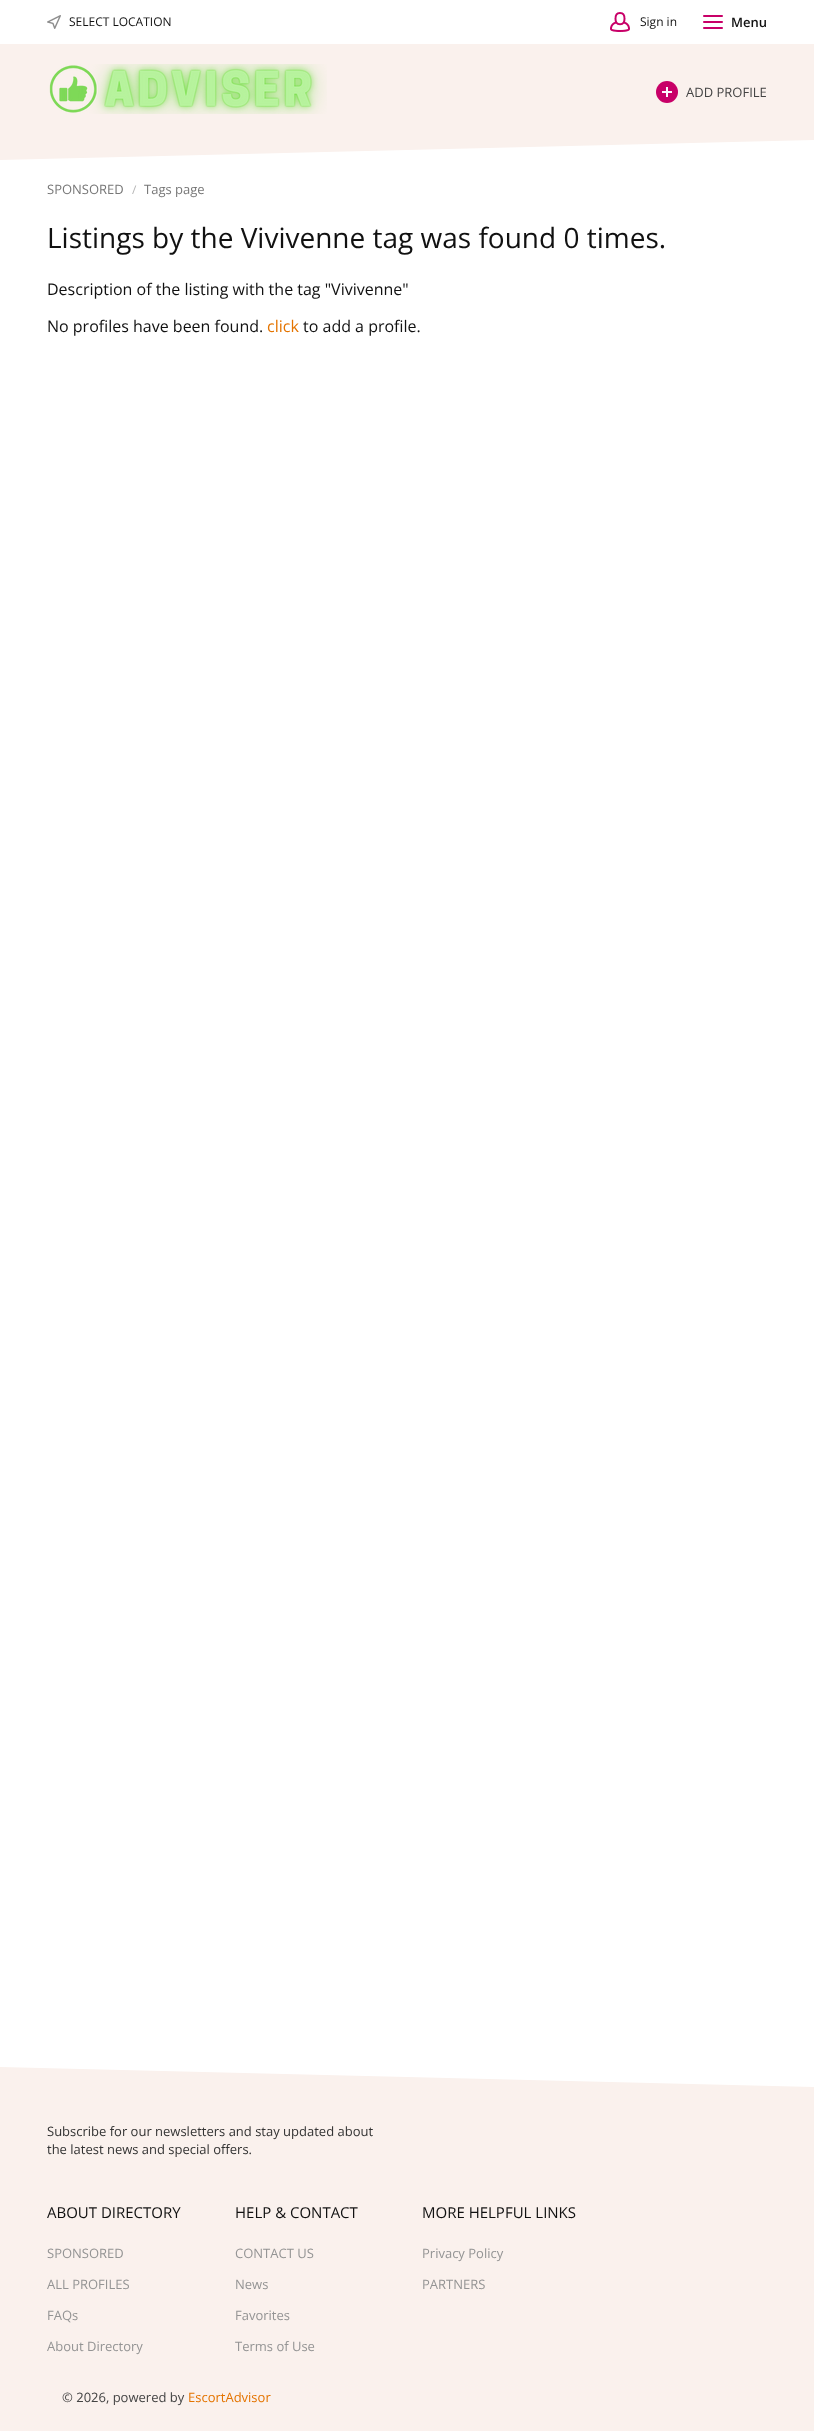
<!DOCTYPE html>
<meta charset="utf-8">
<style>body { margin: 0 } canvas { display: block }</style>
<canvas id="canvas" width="814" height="2431"></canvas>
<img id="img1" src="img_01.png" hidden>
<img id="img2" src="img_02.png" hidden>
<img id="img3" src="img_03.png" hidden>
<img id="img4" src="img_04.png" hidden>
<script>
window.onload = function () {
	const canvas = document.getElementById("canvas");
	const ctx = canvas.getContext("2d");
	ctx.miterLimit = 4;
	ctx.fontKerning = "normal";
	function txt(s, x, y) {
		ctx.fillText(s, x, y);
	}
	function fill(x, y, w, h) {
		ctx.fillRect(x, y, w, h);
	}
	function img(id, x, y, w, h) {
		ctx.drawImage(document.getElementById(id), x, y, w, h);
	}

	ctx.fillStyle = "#FFFFFF";
	fill(0, 0, 814, 2431);
	ctx.fillStyle = "#FAF1ED";
	ctx.beginPath();
	ctx.moveTo(0, 0);
	ctx.lineTo(0, 160);
	ctx.lineTo(814, 140);
	ctx.lineTo(814, 0);
	ctx.closePath();
	ctx.fill();
	ctx.fillStyle = "#FFFFFF";
	fill(0, 0, 814, 44);
	img("img1", 47, 15, 14, 14);
	img("img2", 610, 12, 20, 20);
	img("img3", 703, 15, 20, 14);
	img("img4", 49, 64, 278, 50);
	ctx.fillStyle = "#C80068";
	ctx.beginPath();
	ctx.arc(667, 92, 11, 0, Math.PI * 2);
	ctx.fill();
	ctx.fillStyle = "#FBF8FD";
	fill(666, 87, 2, 10);
	fill(662, 91, 10, 2);
	ctx.fillStyle = "#FAF1ED";
	ctx.beginPath();
	ctx.moveTo(0, 2067);
	ctx.lineTo(0, 2431);
	ctx.lineTo(814, 2431);
	ctx.lineTo(814, 2087);
	ctx.closePath();
	ctx.fill();
	ctx.font = "12px Open Sans";
	ctx.fillStyle = "#111111";
	txt("SELECT LOCATION", 69, 26);
	txt("Sign in", 640, 26);
	ctx.font = "600 13px Open Sans";
	txt("Menu", 731, 27);
	ctx.font = "13px Open Sans";
	ctx.fillStyle = "#444444";
	txt("ADD PROFILE", 686, 97);
	ctx.fillStyle = "#777777";
	txt("SPONSORED", 47, 194);
	ctx.font = "12px Open Sans";
	ctx.fillStyle = "#B5B5B5";
	txt("/", 132, 194);
	ctx.font = "13px Open Sans";
	ctx.fillStyle = "#777777";
	txt("Tags page", 144, 194);
	ctx.font = "28px Open Sans";
	ctx.fillStyle = "#111111";
	txt("Listings by the Vivivenne tag was found 0 times.", 47, 248);
	ctx.font = "16px Open Sans";
	txt("Description of the listing with the tag \"Vivivenne\"", 47, 295);
	txt("No profiles have been found.", 47, 332);
	ctx.fillStyle = "#E47400";
	txt("click", 267, 332);
	ctx.fillStyle = "#111111";
	txt("to add a profile.", 303, 332);
	ctx.font = "13px Open Sans";
	ctx.fillStyle = "#333333";
	txt("Subscribe for our newsletters and stay updated about", 47, 2136);
	txt("the latest news and special offers.", 47, 2154);
	ctx.font = "15px Open Sans";
	ctx.fillStyle = "#111111";
	txt("ABOUT DIRECTORY", 47, 2218);
	ctx.font = "13px Open Sans";
	ctx.fillStyle = "#949494";
	txt("SPONSORED", 47, 2258);
	txt("ALL PROFILES", 47, 2289);
	txt("FAQs", 47, 2320);
	txt("About Directory", 47, 2351);
	ctx.font = "15px Open Sans";
	ctx.fillStyle = "#111111";
	txt("HELP & CONTACT", 235, 2218);
	ctx.font = "13px Open Sans";
	ctx.fillStyle = "#949494";
	txt("CONTACT US", 235, 2258);
	txt("News", 235, 2289);
	txt("Favorites", 235, 2320);
	txt("Terms of Use", 235, 2351);
	ctx.font = "15px Open Sans";
	ctx.fillStyle = "#111111";
	txt("MORE HELPFUL LINKS", 422, 2218);
	ctx.font = "13px Open Sans";
	ctx.fillStyle = "#949494";
	txt("Privacy Policy", 422, 2258);
	txt("PARTNERS", 422, 2289);
	ctx.fillStyle = "#444444";
	txt("© 2026, powered by", 62, 2402);
	ctx.fillStyle = "#E47400";
	txt("EscortAdvisor", 188, 2402);
};
</script>
